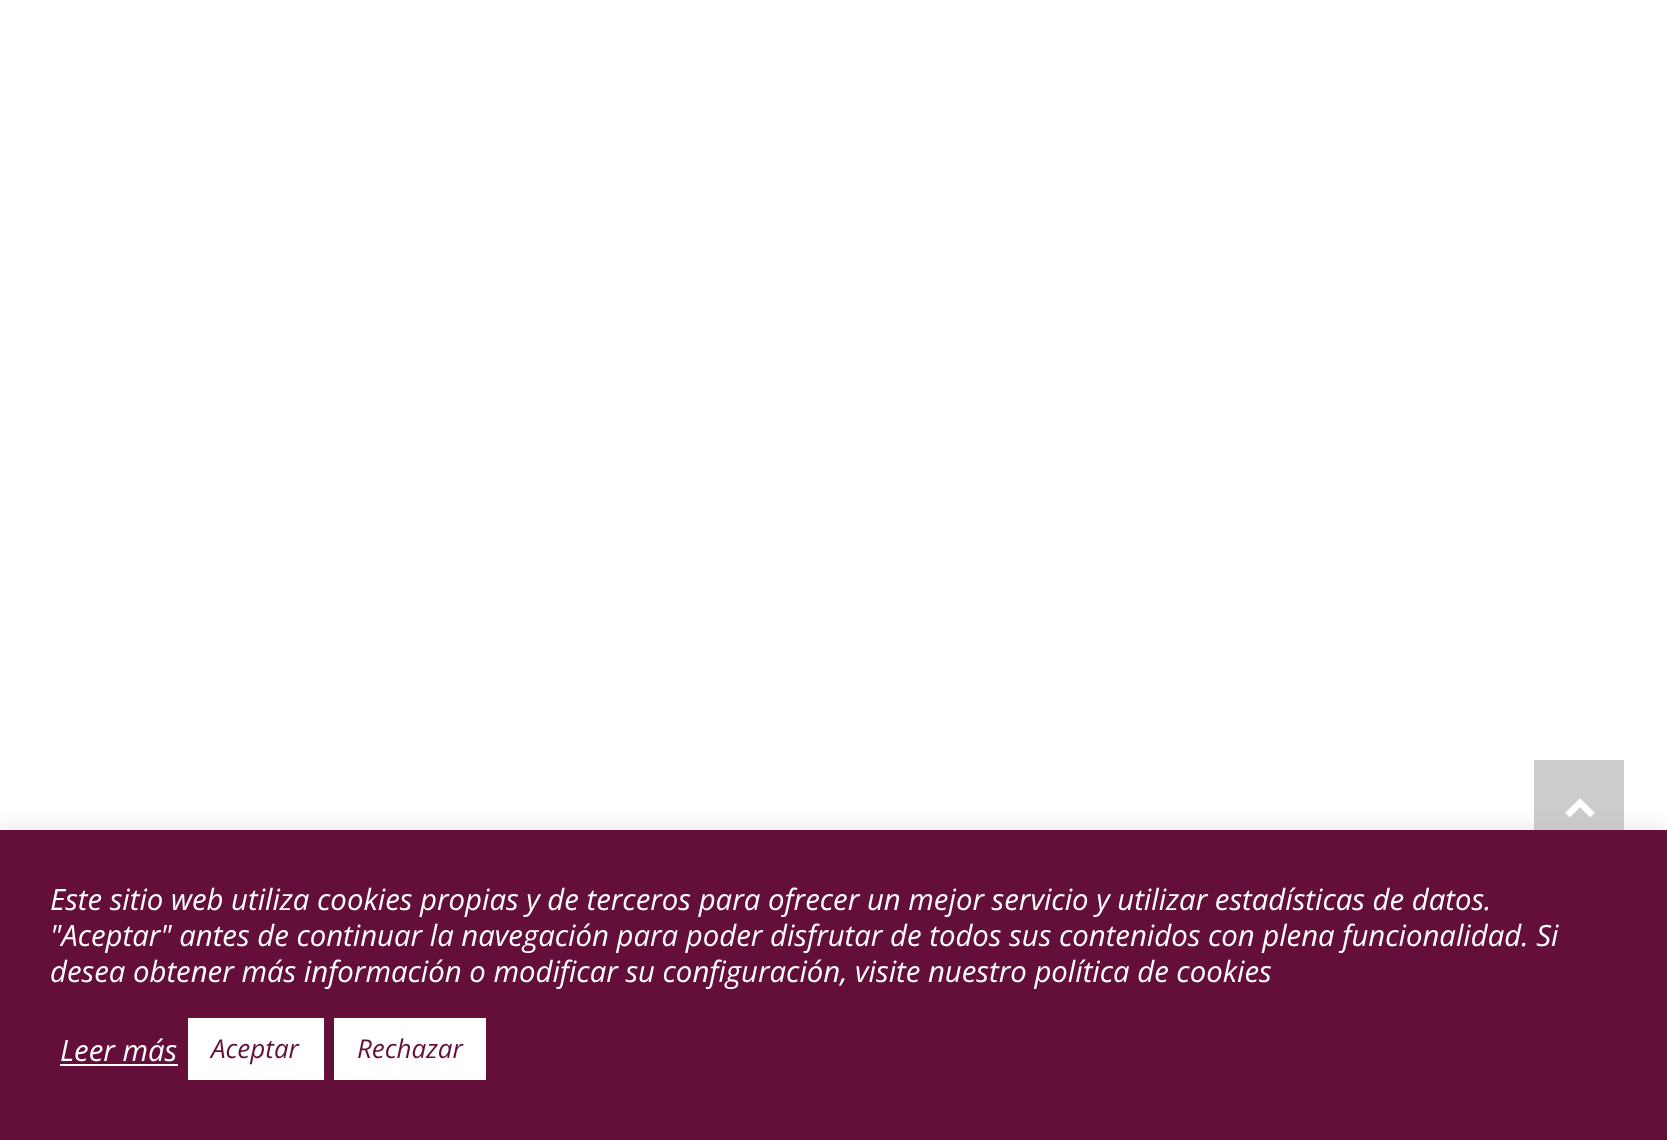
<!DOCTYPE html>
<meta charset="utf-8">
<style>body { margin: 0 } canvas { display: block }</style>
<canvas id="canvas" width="1667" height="1140"></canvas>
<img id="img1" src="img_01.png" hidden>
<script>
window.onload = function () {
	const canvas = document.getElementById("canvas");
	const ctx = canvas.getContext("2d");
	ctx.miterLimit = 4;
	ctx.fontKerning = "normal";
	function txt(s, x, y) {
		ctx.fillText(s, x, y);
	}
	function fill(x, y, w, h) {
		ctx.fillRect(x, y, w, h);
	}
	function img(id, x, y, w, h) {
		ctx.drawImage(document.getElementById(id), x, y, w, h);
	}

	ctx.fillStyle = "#FFFFFF";
	fill(0, 0, 1667, 1140);
	ctx.fillStyle = "#CCCCCC";
	fill(1534, 760, 90, 70);
	img("img1", 1565, 798, 30, 19);
	ctx.fillStyle = "rgba(172, 171, 171, 0.3)";
	ctx.filter = "blur(10px)";
	ctx.beginPath();
	ctx.rect(0, 828, 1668, 310);
	ctx.fill();
	ctx.filter = "none";
	ctx.fillStyle = "#640F3A";
	fill(0, 830, 1667, 310);
	ctx.fillStyle = "#FFFFFF";
	fill(60, 1064, 118, 2);
	fill(188, 1018, 136, 62);
	fill(334, 1018, 152, 62);
	ctx.font = "italic 29.33px Open Sans";
	txt("Este sitio web utiliza cookies propias y de terceros para ofrecer un mejor servicio y utilizar estadísticas de datos.", 50, 910);
	txt("\"Aceptar\" antes de continuar la navegación para poder disfrutar de todos sus contenidos con plena funcionalidad. Si", 50, 946);
	txt("desea obtener más información o modificar su configuración, visite nuestro política de cookies", 50, 982);
	txt("Leer más", 60, 1061);
	ctx.font = "italic 26px Open Sans";
	ctx.fillStyle = "#640F3A";
	txt("Aceptar", 211, 1058);
	txt("Rechazar", 357, 1058);
};
</script>
